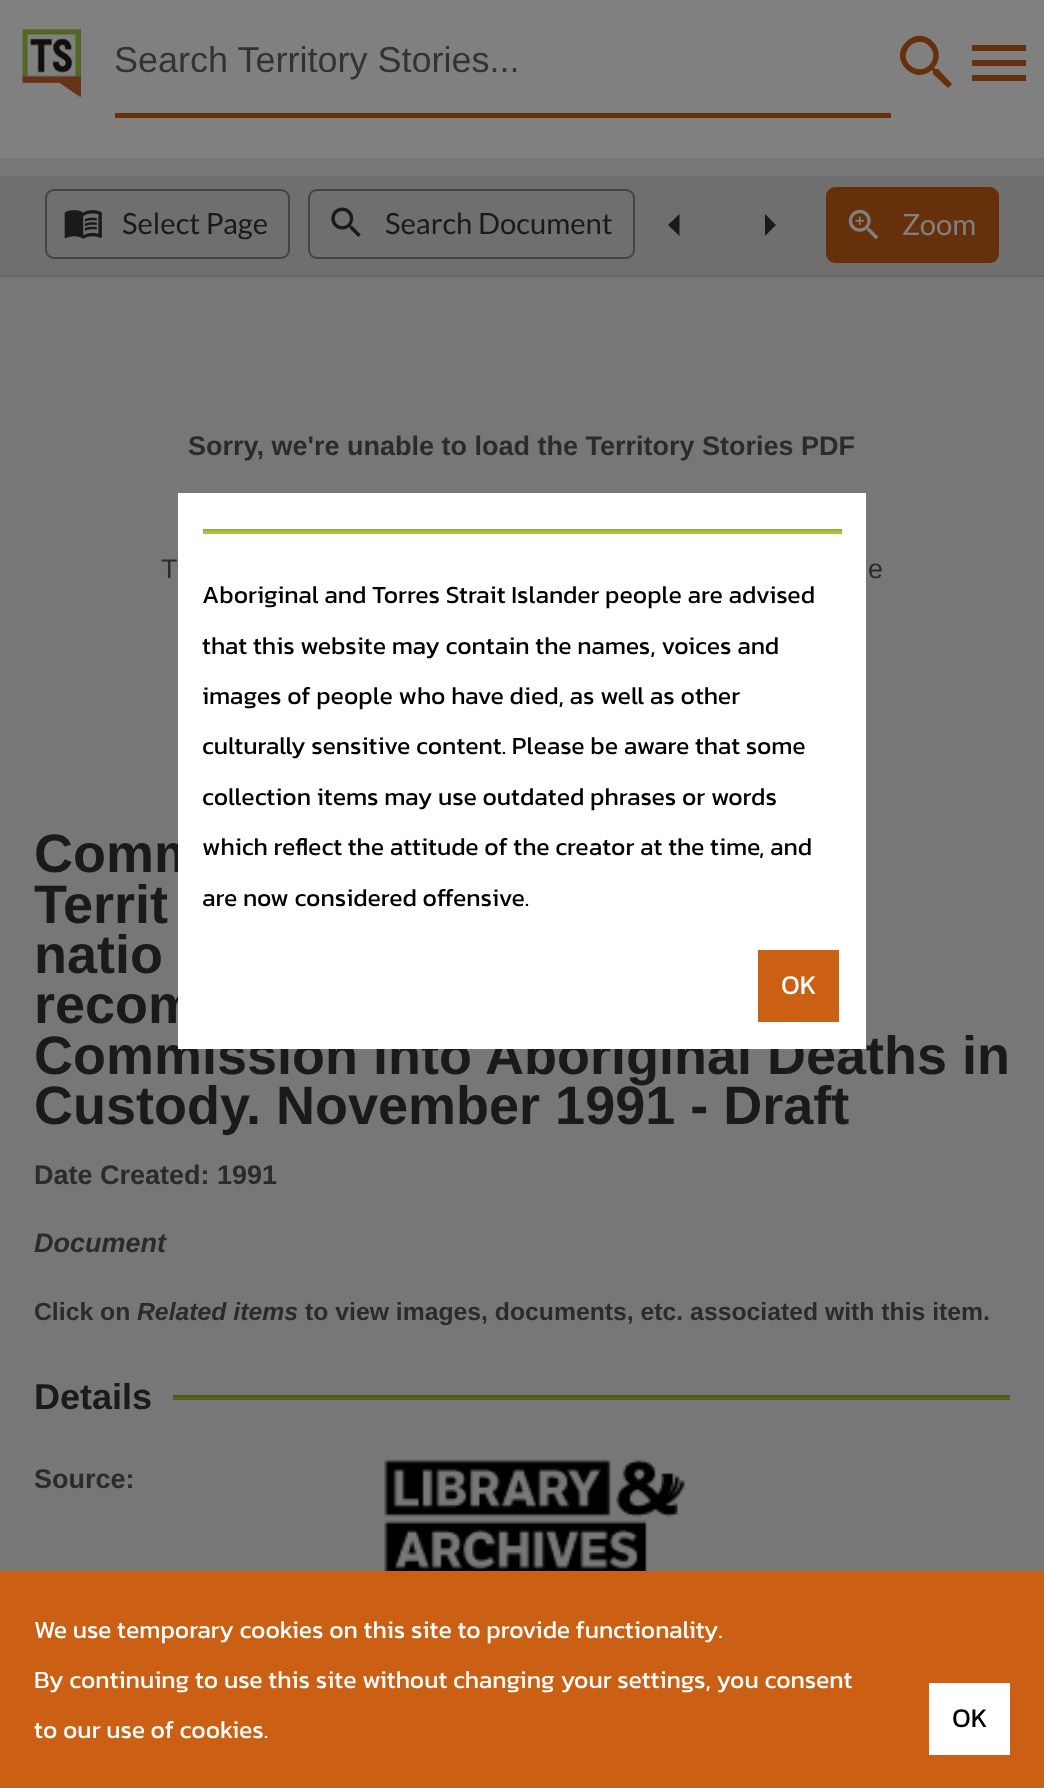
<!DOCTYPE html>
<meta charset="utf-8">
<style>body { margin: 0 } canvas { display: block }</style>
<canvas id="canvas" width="1044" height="1788"></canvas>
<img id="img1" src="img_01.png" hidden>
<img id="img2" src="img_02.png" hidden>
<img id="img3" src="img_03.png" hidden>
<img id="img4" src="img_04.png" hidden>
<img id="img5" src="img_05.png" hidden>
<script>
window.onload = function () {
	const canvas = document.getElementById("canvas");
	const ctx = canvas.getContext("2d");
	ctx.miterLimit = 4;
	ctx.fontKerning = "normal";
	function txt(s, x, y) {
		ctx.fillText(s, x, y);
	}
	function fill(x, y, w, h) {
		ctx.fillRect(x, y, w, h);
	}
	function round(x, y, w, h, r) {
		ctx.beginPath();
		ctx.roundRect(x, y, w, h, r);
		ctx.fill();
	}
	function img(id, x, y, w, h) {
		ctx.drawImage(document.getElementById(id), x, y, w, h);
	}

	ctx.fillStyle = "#777777";
	fill(0, 0, 1044, 1788);
	ctx.fillStyle = "#808080";
	fill(0, 0, 1044, 158);
	img("img1", 22, 29, 59, 69);
	ctx.fillStyle = "#66300B";
	fill(115, 113, 776, 5);
	ctx.beginPath();
	ctx.moveTo(910, 65);
	ctx.bezierCurveTo(923, 78, 942, 59, 929, 46);
	ctx.bezierCurveTo(917, 33, 897, 53, 910, 65);
	ctx.closePath();
	ctx.moveTo(938, 69);
	ctx.lineTo(952, 84);
	ctx.lineTo(948, 88);
	ctx.lineTo(933, 74);
	ctx.lineTo(933, 71);
	ctx.lineTo(932, 70);
	ctx.bezierCurveTo(914, 86, 888, 59, 906, 42);
	ctx.bezierCurveTo(923, 24, 950, 49, 934, 68);
	ctx.lineTo(935, 69);
	ctx.closePath();
	ctx.fill();
	ctx.beginPath();
	ctx.moveTo(972, 45);
	ctx.lineTo(1026, 45);
	ctx.lineTo(1026, 51);
	ctx.lineTo(972, 51);
	ctx.closePath();
	ctx.moveTo(972, 66);
	ctx.lineTo(972, 60);
	ctx.lineTo(1026, 60);
	ctx.lineTo(1026, 66);
	ctx.closePath();
	ctx.moveTo(972, 81);
	ctx.lineTo(972, 75);
	ctx.lineTo(1026, 75);
	ctx.lineTo(1026, 81);
	ctx.closePath();
	ctx.fill();
	ctx.fillStyle = "#6F6F6F";
	fill(0, 176, 1044, 99);
	ctx.fillStyle = "#666666";
	fill(0, 275, 1044, 2);
	ctx.beginPath();
	ctx.roundRect(46, 190, 243, 68, 8);
	ctx.strokeStyle = "#444444";
	ctx.lineWidth = 2;
	ctx.stroke();
	img("img2", 64, 210, 38, 29);
	ctx.beginPath();
	ctx.roundRect(309, 190, 325, 68, 8);
	ctx.stroke();
	img("img3", 331, 207, 30, 30);
	ctx.fillStyle = "#1A1A1A";
	ctx.beginPath();
	ctx.moveTo(679.5, 214);
	ctx.lineTo(668, 225);
	ctx.lineTo(679.5, 236);
	ctx.closePath();
	ctx.fill();
	ctx.beginPath();
	ctx.moveTo(765, 236);
	ctx.lineTo(776, 225);
	ctx.lineTo(765, 214);
	ctx.closePath();
	ctx.fill();
	ctx.fillStyle = "#66300B";
	round(826, 187, 173, 76, 9);
	img("img4", 848, 209, 31, 31);
	ctx.fillStyle = "#556120";
	fill(173, 1397, 837, 3);
	ctx.fillStyle = "#4C581D";
	fill(173, 1395, 837, 2);
	img("img5", 384, 1459, 301, 112);
	ctx.fillStyle = "#CB6015";
	fill(0, 1571, 1044, 217);
	ctx.fillStyle = "#FFFFFF";
	fill(929, 1683, 81, 72);
	ctx.font = "36px Liberation Sans";
	ctx.fillStyle = "#333333";
	txt("Search Territory Stories...", 114, 72);
	ctx.font = "29.25px Lato";
	ctx.fillStyle = "#1A1A1A";
	txt("Select Page", 122, 234);
	txt("Search Document", 385, 234);
	ctx.fillStyle = "#808080";
	txt("Zoom", 902, 235);
	ctx.font = "bold 27px Liberation Sans";
	ctx.fillStyle = "#2B2B2B";
	txt("Sorry, we're unable to load the Territory Stories PDF", 188, 455);
	ctx.font = "27px Liberation Sans";
	txt("T", 161, 578);
	txt("e", 868, 578);
	ctx.font = "bold 54px Liberation Sans";
	ctx.fillStyle = "#1A1A1A";
	txt("Comm", 34, 872);
	txt("Territ", 34, 923);
	txt("natio", 34, 973);
	txt("recom", 34, 1023);
	txt("Commission into Aboriginal Deaths in", 34, 1074);
	txt("Custody. November 1991 - Draft", 34, 1124);
	ctx.font = "bold 27px Liberation Sans";
	ctx.fillStyle = "#2B2B2B";
	txt("Date Created: 1991", 34, 1184);
	ctx.font = "italic bold 27px Liberation Sans";
	txt("Document", 34, 1252);
	ctx.font = "bold 24.75px Liberation Sans";
	txt("Click on", 34, 1320);
	ctx.font = "italic bold 24.75px Liberation Sans";
	txt("Related items", 137, 1320);
	ctx.font = "bold 24.75px Liberation Sans";
	txt("to view images, documents, etc. associated with this item.", 305, 1320);
	ctx.font = "bold 36px Liberation Sans";
	ctx.fillStyle = "#1A1A1A";
	txt("Details", 34, 1409);
	ctx.font = "bold 27px Liberation Sans";
	ctx.fillStyle = "#2B2B2B";
	txt("Source:", 34, 1488);
	ctx.fillStyle = "#FFFFFF";
	fill(178, 493, 688, 556);
	ctx.fillStyle = "#A9C23F";
	fill(203, 531, 639, 3);
	ctx.fillStyle = "#98AF39";
	fill(203, 529, 639, 2);
	ctx.font = "24.75px Kanit";
	ctx.fillStyle = "#000000";
	txt("Aboriginal and Torres Strait Islander people are advised", 202, 603);
	txt("that this website may contain the names, voices and", 202, 654);
	txt("images of people who have died, as well as other", 202, 704);
	txt("culturally sensitive content. Please be aware that some", 202, 754);
	txt("collection items may use outdated phrases or words", 202, 805);
	txt("which reflect the attitude of the creator at the time, and", 202, 855);
	txt("are now considered offensive.", 202, 906);
	ctx.fillStyle = "#CB6015";
	fill(758, 950, 81, 72);
	ctx.font = "27px Kanit";
	ctx.fillStyle = "#FFFFFF";
	txt("OK", 781, 994);
	ctx.font = "24.75px Kanit";
	txt("We use temporary cookies on this site to provide functionality.", 34, 1638);
	txt("By continuing to use this site without changing your settings, you consent", 34, 1688);
	txt("to our use of cookies.", 34, 1738);
	ctx.font = "27px Kanit";
	ctx.fillStyle = "#000000";
	txt("OK", 952, 1727);
};
</script>
